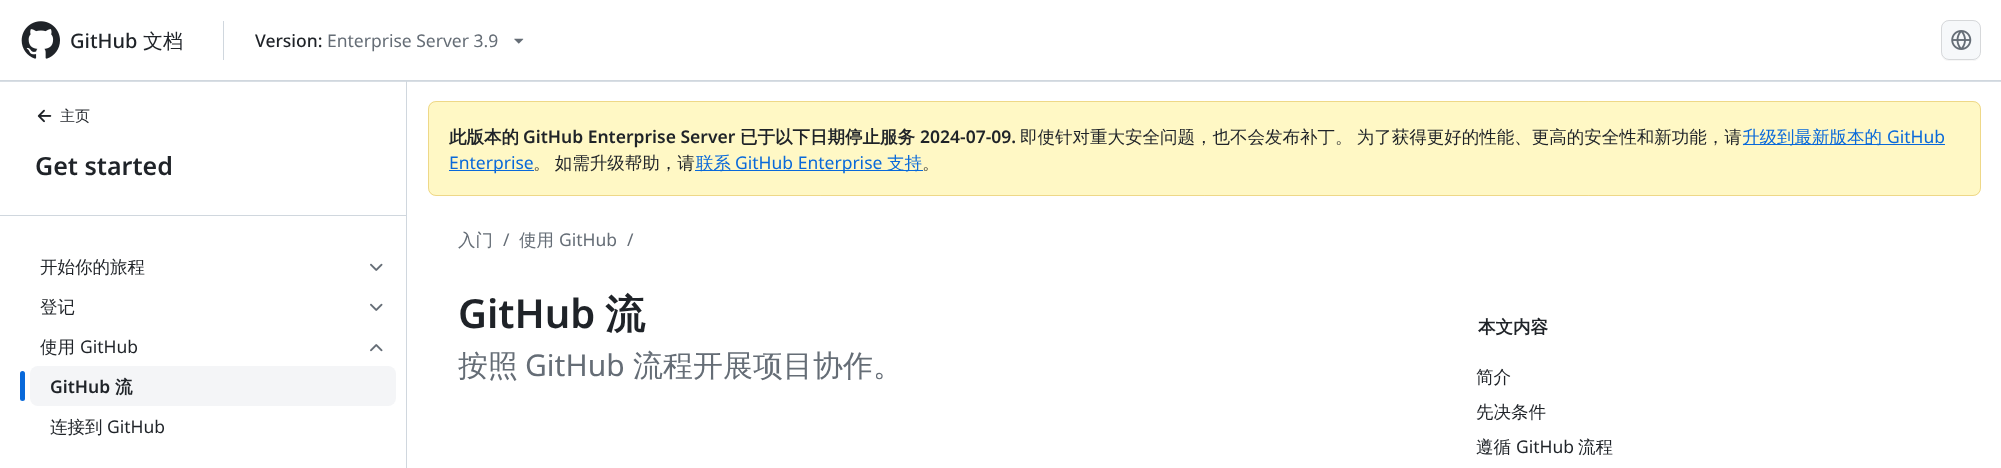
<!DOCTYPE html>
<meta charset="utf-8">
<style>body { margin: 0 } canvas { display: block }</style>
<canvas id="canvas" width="2001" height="468"></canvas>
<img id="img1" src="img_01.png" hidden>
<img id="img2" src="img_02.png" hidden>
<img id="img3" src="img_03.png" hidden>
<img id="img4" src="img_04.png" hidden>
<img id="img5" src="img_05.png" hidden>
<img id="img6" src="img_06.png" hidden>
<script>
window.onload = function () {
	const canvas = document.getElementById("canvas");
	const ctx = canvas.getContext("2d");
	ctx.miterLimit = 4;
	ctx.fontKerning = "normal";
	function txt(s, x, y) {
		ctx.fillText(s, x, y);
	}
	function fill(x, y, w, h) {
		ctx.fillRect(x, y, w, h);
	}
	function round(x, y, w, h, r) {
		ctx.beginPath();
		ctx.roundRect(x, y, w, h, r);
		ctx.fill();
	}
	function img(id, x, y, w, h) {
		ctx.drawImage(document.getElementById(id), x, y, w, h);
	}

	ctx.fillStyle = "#FFFFFF";
	fill(0, 0, 2001, 468);
	ctx.fillStyle = "#D8DEE4";
	fill(0, 81, 2001, 1);
	ctx.fillStyle = "#D0D7DE";
	fill(0, 80, 2001, 1);
	img("img1", 21, 21, 39, 38);
	fill(223, 21, 1, 39);
	img("img2", 514, 38, 10, 6);
	ctx.fillStyle = "#F6F6F6";
	ctx.beginPath();
	ctx.moveTo(1941.5, 27);
	ctx.lineTo(1941, 29);
	ctx.lineTo(1941, 53);
	ctx.bezierCurveTo(1941, 57.5, 1944.5, 61, 1949, 61);
	ctx.lineTo(1973, 61);
	ctx.bezierCurveTo(1976.5, 61, 1979.5, 59, 1980.5, 55.5);
	ctx.bezierCurveTo(1978, 61.5, 1970.5, 60, 1965.5, 60);
	ctx.lineTo(1953, 60);
	ctx.bezierCurveTo(1948, 60, 1942.5, 60, 1941.5, 54);
	ctx.closePath();
	ctx.fill();
	ctx.fillStyle = "#F6F8FA";
	round(1941, 20, 40, 40, 8);
	ctx.beginPath();
	ctx.roundRect(1941.5, 20.5, 39, 39, 7.5);
	ctx.strokeStyle = "rgba(31, 35, 40, 0.15)";
	ctx.stroke();
	img("img3", 1951, 30, 21, 20);
	ctx.fillStyle = "#D0D7DE";
	fill(406, 81, 1, 387);
	fill(0, 215, 406, 1);
	img("img4", 37, 109, 15, 14);
	img("img5", 370, 263, 13, 8);
	img("img5", 370, 303, 13, 8);
	img("img6", 370, 344, 13, 8);
	ctx.fillStyle = "#F4F5F7";
	round(30, 366, 366, 40, 8);
	ctx.fillStyle = "#0969DA";
	round(20, 371, 5, 30, 2.5);
	ctx.fillStyle = "#FFF8C5";
	round(428, 101, 1553, 95, 8);
	ctx.beginPath();
	ctx.roundRect(428.5, 101.5, 1552, 94, 7.5);
	ctx.strokeStyle = "rgba(212, 167, 44, 0.4)";
	ctx.stroke();
	ctx.fillStyle = "#0969DA";
	fill(1743, 144, 202, 1);
	fill(449, 170, 85, 1);
	fill(695, 170, 228, 1);
	ctx.font = "500 20px Noto Sans";
	ctx.fillStyle = "#1F2328";
	txt("GitHub", 70, 48);
	ctx.font = "500 20px WenQuanYi Zen Hei";
	txt("文档", 143, 48);
	ctx.font = "500 17.5px Noto Sans";
	txt("Version:", 255, 47);
	ctx.font = "17.5px Noto Sans";
	ctx.fillStyle = "#656D76";
	txt("Enterprise Server 3.9", 327, 47);
	ctx.font = "500 15px WenQuanYi Zen Hei";
	ctx.fillStyle = "#1F2328";
	txt("主页", 60, 121);
	ctx.font = "600 25px Noto Sans";
	txt("Get started", 35, 175);
	ctx.font = "500 17.5px WenQuanYi Zen Hei";
	txt("开始你的旅程", 40, 273);
	txt("登记", 40, 313);
	txt("使用", 40, 353);
	ctx.font = "17.5px Noto Sans";
	txt("GitHub", 80, 353);
	ctx.font = "600 17.5px Noto Sans";
	txt("GitHub", 50, 393);
	ctx.font = "bold 17.5px WenQuanYi Zen Hei";
	txt("流", 115, 393);
	ctx.font = "500 17.5px WenQuanYi Zen Hei";
	txt("连接到", 50, 433);
	ctx.font = "17.5px Noto Sans";
	txt("GitHub", 107, 433);
	ctx.font = "bold 17.5px WenQuanYi Zen Hei";
	txt("此版本的", 449, 143);
	ctx.font = "600 17.5px Noto Sans";
	txt("GitHub Enterprise Server", 523, 143);
	ctx.font = "bold 17.5px WenQuanYi Zen Hei";
	txt("已于以下日期停止服务", 740, 143);
	ctx.font = "600 17.5px Noto Sans";
	txt("2024-07-09.", 920, 143);
	ctx.wordSpacing = "-1px";
	ctx.font = "500 17.5px WenQuanYi Zen Hei";
	txt("即使针对重大安全问题，也不会发布补丁。 为了获得更好的性能、更高的安全性和新功能，请", 1020, 143);
	ctx.wordSpacing = "0px";
	ctx.fillStyle = "#0969DA";
	txt("升级到最新版本的", 1742, 143);
	ctx.font = "17.5px Noto Sans";
	txt("GitHub", 1887, 143);
	txt("Enterprise", 449, 169);
	ctx.wordSpacing = "-1px";
	ctx.font = "500 17.5px WenQuanYi Zen Hei";
	ctx.fillStyle = "#1F2328";
	txt("。 如需升级帮助，请", 533, 169);
	ctx.wordSpacing = "0px";
	ctx.fillStyle = "#0969DA";
	txt("联系", 696, 169);
	ctx.font = "17.5px Noto Sans";
	txt("GitHub Enterprise", 735, 169);
	ctx.font = "500 17.5px WenQuanYi Zen Hei";
	txt("支持", 887, 169);
	ctx.fillStyle = "#1F2328";
	txt("。", 922, 169);
	ctx.fillStyle = "#656D76";
	txt("入门", 458, 246);
	ctx.font = "17.5px Noto Sans";
	txt("/", 503, 246);
	ctx.font = "500 17.5px WenQuanYi Zen Hei";
	txt("使用", 519, 246);
	ctx.font = "17.5px Noto Sans";
	txt("GitHub", 559, 246);
	txt("/", 627, 246);
	ctx.font = "600 40px Noto Sans";
	ctx.fillStyle = "#1F2328";
	txt("GitHub", 458, 328);
	ctx.font = "bold 40px WenQuanYi Zen Hei";
	txt("流", 605, 328);
	ctx.font = "500 30px WenQuanYi Zen Hei";
	ctx.fillStyle = "#656D76";
	txt("按照", 458, 376);
	ctx.font = "30px Noto Sans";
	txt("GitHub", 525, 376);
	ctx.font = "500 30px WenQuanYi Zen Hei";
	txt("流程开展项目协作。", 633, 376);
	ctx.font = "bold 17.5px WenQuanYi Zen Hei";
	ctx.fillStyle = "#1F2328";
	txt("本文内容", 1478, 333);
	ctx.font = "500 17.5px WenQuanYi Zen Hei";
	txt("简介", 1476, 383);
	txt("先决条件", 1476, 418);
	txt("遵循", 1476, 453);
	ctx.font = "17.5px Noto Sans";
	txt("GitHub", 1516, 453);
	ctx.font = "500 17.5px WenQuanYi Zen Hei";
	txt("流程", 1578, 453);
};
</script>
